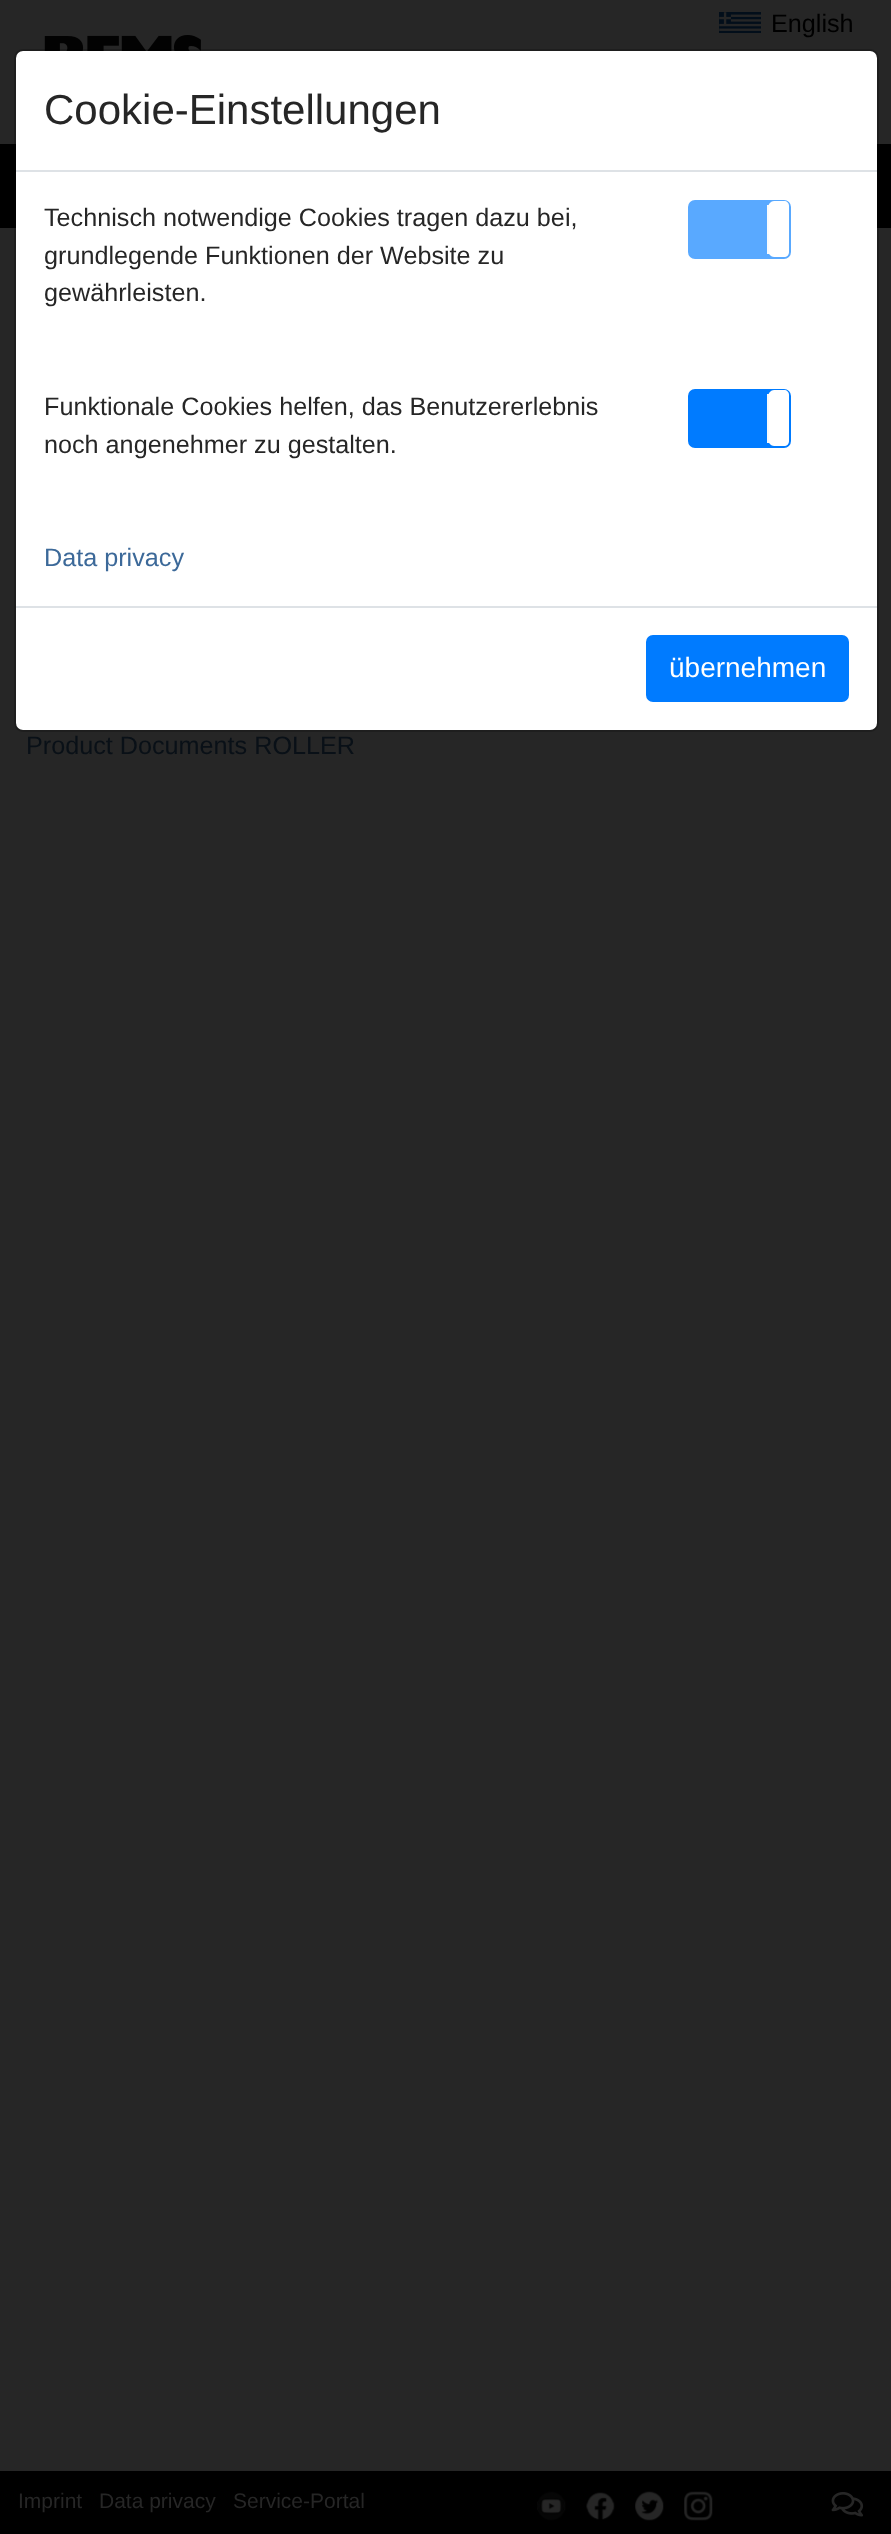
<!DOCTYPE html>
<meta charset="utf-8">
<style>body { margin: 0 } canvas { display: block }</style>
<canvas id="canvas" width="891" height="2534"></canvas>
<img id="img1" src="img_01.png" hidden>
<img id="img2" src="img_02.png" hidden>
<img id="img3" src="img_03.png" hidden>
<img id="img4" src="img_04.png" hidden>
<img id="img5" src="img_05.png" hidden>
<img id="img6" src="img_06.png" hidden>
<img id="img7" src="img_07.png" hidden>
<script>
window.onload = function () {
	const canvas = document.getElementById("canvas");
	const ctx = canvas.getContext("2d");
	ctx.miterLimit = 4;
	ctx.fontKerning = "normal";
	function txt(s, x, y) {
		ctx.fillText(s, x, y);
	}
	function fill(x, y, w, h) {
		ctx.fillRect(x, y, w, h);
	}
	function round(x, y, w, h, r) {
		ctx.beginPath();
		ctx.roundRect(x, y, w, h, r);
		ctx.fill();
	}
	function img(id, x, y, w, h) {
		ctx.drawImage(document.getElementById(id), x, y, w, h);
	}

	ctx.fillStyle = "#262626";
	fill(0, 0, 891, 2534);
	ctx.fillStyle = "#000000";
	fill(0, 144, 891, 84);
	img("img1", 719, 12, 42, 21);
	img("img2", 44, 35, 157, 16);
	fill(0, 2471, 891, 63);
	img("img3", 537, 2491, 29, 30);
	img("img4", 586, 2492, 29, 28);
	img("img5", 635, 2491, 29, 30);
	img("img6", 684, 2491, 29, 30);
	img("img7", 831, 2492, 33, 25);
	ctx.fillStyle = "#FFFFFF";
	round(16, 51, 861, 679, 7);
	ctx.beginPath();
	ctx.roundRect(15, 50, 863, 681, 8);
	ctx.strokeStyle = "rgba(0, 0, 0, 0.2)";
	ctx.lineWidth = 2;
	ctx.stroke();
	ctx.fillStyle = "#DEE2E6";
	fill(16, 170, 861, 2);
	ctx.fillStyle = "#59A9FF";
	ctx.beginPath();
	ctx.roundRect(689, 201, 101, 57, 6);
	ctx.fill();
	ctx.strokeStyle = "#59A9FF";
	ctx.stroke();
	ctx.fillStyle = "#FFFFFF";
	ctx.beginPath();
	ctx.moveTo(774, 201);
	ctx.bezierCurveTo(771, 201, 768, 204, 768, 208);
	ctx.lineTo(768, 250);
	ctx.bezierCurveTo(768, 254, 771, 257, 774, 257);
	ctx.lineTo(784, 257);
	ctx.bezierCurveTo(787, 257, 789, 255, 789, 252);
	ctx.lineTo(789, 206);
	ctx.bezierCurveTo(789, 203, 787, 201, 784, 201);
	ctx.closePath();
	ctx.fill();
	ctx.fillStyle = "#FAFBFC";
	fill(767, 205, 2, 49);
	ctx.fillStyle = "#007BFF";
	ctx.beginPath();
	ctx.roundRect(689, 390, 101, 57, 6);
	ctx.fill();
	ctx.strokeStyle = "#007BFF";
	ctx.stroke();
	ctx.fillStyle = "#FFFFFF";
	ctx.beginPath();
	ctx.moveTo(774, 390);
	ctx.bezierCurveTo(771, 390, 768, 393, 768, 397);
	ctx.lineTo(768, 439);
	ctx.bezierCurveTo(768, 443, 771, 446, 774, 446);
	ctx.lineTo(784, 446);
	ctx.bezierCurveTo(787, 446, 789, 444, 789, 441);
	ctx.lineTo(789, 395);
	ctx.bezierCurveTo(789, 392, 787, 390, 784, 390);
	ctx.closePath();
	ctx.fill();
	ctx.fillStyle = "#F8F9FA";
	fill(767, 394, 2, 49);
	ctx.fillStyle = "#DEE2E6";
	fill(16, 606, 861, 2);
	ctx.fillStyle = "#007BFF";
	ctx.beginPath();
	ctx.roundRect(647, 636, 201, 65, 6);
	ctx.fill();
	ctx.stroke();
	ctx.font = "25.2px Liberation Sans";
	ctx.fillStyle = "#000000";
	txt("English", 771, 32);
	ctx.fillStyle = "#091017";
	txt("Product Documents ROLLER", 26, 754);
	ctx.font = "21px Liberation Sans";
	ctx.fillStyle = "#262626";
	txt("Imprint", 18, 2508);
	txt("Data privacy", 99, 2508);
	txt("Service-Portal", 233, 2508);
	ctx.font = "42px Liberation Sans";
	txt("Cookie-Einstellungen", 44, 124);
	ctx.font = "25.2px Liberation Sans";
	txt("Technisch notwendige Cookies tragen dazu bei,", 44, 226);
	txt("grundlegende Funktionen der Website zu", 44, 264);
	txt("gewährleisten.", 44, 301);
	txt("Funktionale Cookies helfen, das Benutzererlebnis", 44, 415);
	txt("noch angenehmer zu gestalten.", 44, 453);
	ctx.fillStyle = "#3C6999";
	txt("Data privacy", 44, 566);
	ctx.font = "28px Liberation Sans";
	ctx.fillStyle = "#FFFFFF";
	txt("übernehmen", 669, 677);
};
</script>
